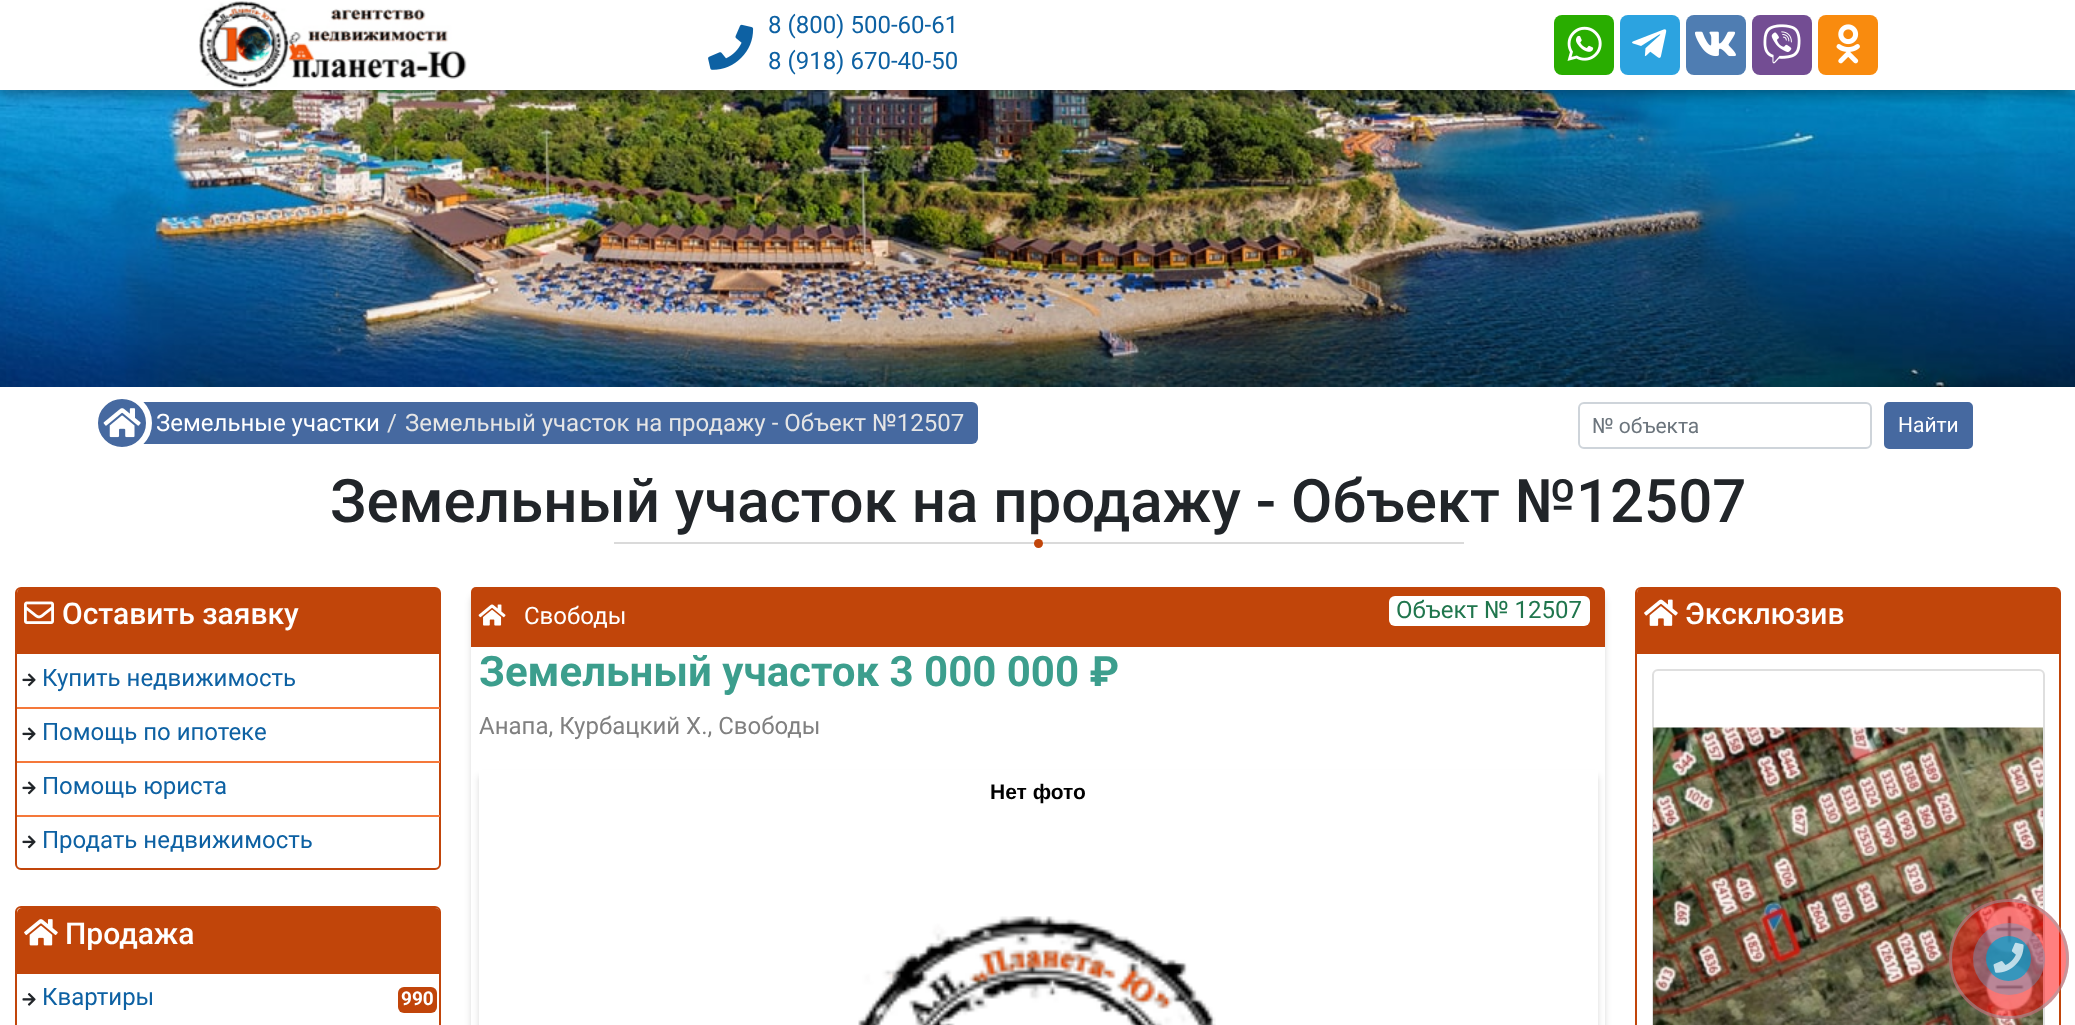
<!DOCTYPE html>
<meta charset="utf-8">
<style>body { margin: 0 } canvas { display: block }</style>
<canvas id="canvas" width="2075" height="1025"></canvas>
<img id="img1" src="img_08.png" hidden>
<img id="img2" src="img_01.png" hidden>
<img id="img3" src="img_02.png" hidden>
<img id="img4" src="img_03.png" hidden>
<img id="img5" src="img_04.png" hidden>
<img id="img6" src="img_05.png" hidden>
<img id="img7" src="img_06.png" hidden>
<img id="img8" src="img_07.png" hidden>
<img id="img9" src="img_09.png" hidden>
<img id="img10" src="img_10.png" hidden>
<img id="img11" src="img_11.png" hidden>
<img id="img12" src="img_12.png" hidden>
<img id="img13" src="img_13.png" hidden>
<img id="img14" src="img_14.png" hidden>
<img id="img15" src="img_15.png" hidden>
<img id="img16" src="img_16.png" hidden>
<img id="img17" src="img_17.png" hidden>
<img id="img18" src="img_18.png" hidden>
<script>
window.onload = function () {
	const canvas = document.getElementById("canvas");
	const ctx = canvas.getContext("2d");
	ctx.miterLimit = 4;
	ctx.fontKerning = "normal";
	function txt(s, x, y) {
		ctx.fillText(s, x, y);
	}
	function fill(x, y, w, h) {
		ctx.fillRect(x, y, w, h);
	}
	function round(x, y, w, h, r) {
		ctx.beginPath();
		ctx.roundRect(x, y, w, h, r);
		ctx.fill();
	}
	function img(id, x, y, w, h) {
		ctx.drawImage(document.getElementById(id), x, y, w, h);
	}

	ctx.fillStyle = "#FFFFFF";
	fill(0, 0, 2075, 1025);
	img("img1", 0, 90, 2075, 297);
	ctx.fillStyle = "rgba(0, 0, 0, 0.4)";
	ctx.filter = "blur(7.5px)";
	ctx.beginPath();
	ctx.rect(-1, 0, 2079, 93);
	ctx.fill();
	ctx.filter = "none";
	ctx.fillStyle = "#FFFFFF";
	fill(0, 0, 2075, 90);
	img("img2", 199, 1, 268, 87);
	img("img3", 708, 24, 46, 46);
	ctx.fillStyle = "#29AD00";
	round(1554, 15, 60, 60, 8);
	img("img4", 1567, 26, 35, 35);
	ctx.fillStyle = "#2CA3E0";
	round(1620, 15, 60, 60, 8);
	img("img5", 1632, 29, 35, 29);
	ctx.fillStyle = "#4F7DB2";
	round(1686, 15, 60, 60, 8);
	img("img6", 1695, 31, 41, 26);
	ctx.fillStyle = "#734D93";
	round(1752, 15, 60, 60, 8);
	img("img7", 1763, 24, 38, 40);
	ctx.fillStyle = "#F98B0E";
	round(1818, 15, 60, 60, 8);
	img("img8", 1836, 24, 24, 40);
	ctx.fillStyle = "#4669A0";
	round(104, 402, 874, 42, 6);
	ctx.beginPath();
	ctx.arc(122, 423, 27, 0, Math.PI * 2);
	ctx.fill();
	ctx.strokeStyle = "#FFFFFF";
	ctx.lineWidth = 6;
	ctx.stroke();
	img("img9", 103, 408, 38, 30);
	ctx.beginPath();
	ctx.roundRect(1579, 403, 292, 45, 5);
	ctx.strokeStyle = "#CED4DA";
	ctx.lineWidth = 2;
	ctx.stroke();
	ctx.beginPath();
	ctx.roundRect(1885, 403, 87, 45, 4);
	ctx.fill();
	ctx.strokeStyle = "#4669A0";
	ctx.stroke();
	ctx.fillStyle = "#DADADA";
	fill(614, 542, 850, 2);
	ctx.fillStyle = "#C1450A";
	ctx.beginPath();
	ctx.arc(1038.5, 543.5, 4.5, 0, Math.PI * 2);
	ctx.fill();
	ctx.beginPath();
	ctx.roundRect(16, 588, 424, 281, 5);
	ctx.strokeStyle = "#C1450A";
	ctx.stroke();
	ctx.beginPath();
	ctx.roundRect(17, 588, 423, 66, [5, 5, 0, 0]);
	ctx.fill();
	img("img10", 24, 601, 30, 23);
	ctx.fillStyle = "#F5783A";
	fill(17, 707, 423, 2);
	img("img11", 22, 673, 14, 14);
	fill(17, 761, 423, 2);
	img("img11", 22, 727, 14, 14);
	fill(17, 815, 423, 2);
	img("img11", 22, 781, 14, 14);
	img("img11", 22, 835, 14, 14);
	ctx.beginPath();
	ctx.roundRect(16, 907, 424, 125, 5);
	ctx.stroke();
	ctx.fillStyle = "#C1450A";
	ctx.beginPath();
	ctx.roundRect(17, 908, 423, 66, [5, 5, 0, 0]);
	ctx.fill();
	img("img12", 24, 919, 34, 27);
	img("img13", 22, 993, 14, 13);
	round(398, 987, 39, 26, 6);
	ctx.save();
	ctx.beginPath();
	ctx.moveTo(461, 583);
	ctx.lineTo(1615, 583);
	ctx.lineTo(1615, 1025);
	ctx.lineTo(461, 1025);
	ctx.closePath();
	ctx.moveTo(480, 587);
	ctx.lineTo(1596, 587);
	ctx.bezierCurveTo(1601, 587, 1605, 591, 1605, 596);
	ctx.lineTo(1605, 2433);
	ctx.bezierCurveTo(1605, 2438, 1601, 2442, 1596, 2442);
	ctx.lineTo(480, 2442);
	ctx.bezierCurveTo(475, 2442, 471, 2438, 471, 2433);
	ctx.lineTo(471, 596);
	ctx.bezierCurveTo(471, 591, 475, 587, 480, 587);
	ctx.closePath();
	ctx.clip("evenodd");
	ctx.fillStyle = "rgba(0, 0, 0, 0.15)";
	ctx.filter = "blur(3px)";
	ctx.beginPath();
	ctx.roundRect(471, 593, 1134, 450, 9);
	ctx.fill();
	ctx.filter = "none";
	ctx.restore();
	ctx.beginPath();
	ctx.roundRect(471, 587, 1134, 60, [5, 5, 0, 0]);
	ctx.fill();
	img("img14", 478, 604, 28, 22);
	ctx.fillStyle = "#FFFFFF";
	round(1389, 596, 201, 30, 6);
	ctx.save();
	ctx.beginPath();
	ctx.moveTo(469, 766);
	ctx.lineTo(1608, 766);
	ctx.lineTo(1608, 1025);
	ctx.lineTo(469, 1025);
	ctx.closePath();
	ctx.moveTo(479, 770);
	ctx.lineTo(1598, 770);
	ctx.lineTo(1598, 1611);
	ctx.lineTo(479, 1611);
	ctx.closePath();
	ctx.clip("evenodd");
	ctx.fillStyle = "rgba(0, 0, 0, 0.15)";
	ctx.filter = "blur(3px)";
	ctx.beginPath();
	ctx.rect(479, 776, 1119, 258);
	ctx.fill();
	ctx.filter = "none";
	ctx.restore();
	img("img15", 858, 916, 358, 109);
	ctx.beginPath();
	ctx.roundRect(1636, 588, 424, 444, 5);
	ctx.stroke();
	ctx.fillStyle = "#C1450A";
	ctx.beginPath();
	ctx.roundRect(1637, 588, 423, 66, [5, 5, 0, 0]);
	ctx.fill();
	img("img16", 1644, 599, 34, 27);
	ctx.beginPath();
	ctx.roundRect(1653, 670, 391, 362, 5);
	ctx.strokeStyle = "#DFDFDF";
	ctx.stroke();
	img("img17", 1653, 727, 390, 298);
	ctx.fillStyle = "rgba(255, 0, 0, 0.5)";
	ctx.beginPath();
	ctx.arc(2009, 959, 60, 0, Math.PI * 2);
	ctx.fill();
	ctx.beginPath();
	ctx.arc(2009, 959, 58.5, 0, Math.PI * 2);
	ctx.strokeStyle = "rgba(147, 168, 178, 0.5)";
	ctx.lineWidth = 3;
	ctx.stroke();
	ctx.fillStyle = "rgba(110, 154, 193, 0.45)";
	ctx.beginPath();
	ctx.arc(2009, 959, 36, 0, Math.PI * 2);
	ctx.fill();
	ctx.fillStyle = "rgba(0, 157, 204, 0.7)";
	ctx.beginPath();
	ctx.arc(2008.5, 958.5, 22.5, 0, Math.PI * 2);
	ctx.fill();
	img("img18", 1993, 942, 31, 31);
	ctx.font = "24px Roboto";
	ctx.fillStyle = "#0D61A3";
	txt("8 (800) 500-60-61", 768, 33);
	txt("8 (918) 670-40-50", 768, 69);
	ctx.fillStyle = "#FFFFFF";
	txt("Земельные участки", 156, 431);
	ctx.fillStyle = "#E5E5E5";
	txt("/", 387, 431);
	txt("Земельный участок на продажу - Объект №12507", 405, 431);
	ctx.font = "21px Roboto";
	ctx.fillStyle = "#6C757D";
	txt("№ объекта", 1592, 433);
	ctx.fillStyle = "#FFFFFF";
	txt("Найти", 1898, 432);
	ctx.font = "500 60px Roboto";
	ctx.fillStyle = "#212529";
	txt("Земельный участок на продажу - Объект №12507", 330, 522);
	ctx.font = "500 30px Roboto";
	ctx.fillStyle = "#FFFFFF";
	txt("Оставить заявку", 62, 624);
	ctx.font = "24px Roboto";
	ctx.fillStyle = "#0D61A3";
	txt("Купить недвижимость", 42, 686);
	txt("Помощь по ипотеке", 42, 740);
	txt("Помощь юриста", 42, 794);
	txt("Продать недвижимость", 42, 848);
	ctx.font = "500 30px Roboto";
	ctx.fillStyle = "#FFFFFF";
	txt("Продажа", 65, 944);
	ctx.font = "24px Roboto";
	ctx.fillStyle = "#0D61A3";
	txt("Квартиры", 42, 1005);
	ctx.font = "bold 19px Roboto";
	ctx.fillStyle = "#FFFFFF";
	txt("990", 401, 1005);
	ctx.font = "24px Roboto";
	txt("Свободы", 524, 624);
	ctx.fillStyle = "#20764D";
	txt("Объект № 12507", 1396, 618);
	ctx.font = "bold 42px Roboto";
	ctx.fillStyle = "#3C9E8D";
	txt("Земельный участок 3 000 000 ₽", 479, 686);
	ctx.font = "24px Roboto";
	ctx.fillStyle = "#808080";
	txt("Анапа, Курбацкий Х., Свободы", 479, 734);
	ctx.font = "bold 21px Liberation Sans";
	ctx.fillStyle = "#000000";
	txt("Нет фото", 990, 799);
	ctx.font = "500 30px Roboto";
	ctx.fillStyle = "#FFFFFF";
	txt("Эксклюзив", 1685, 624);
};
</script>
